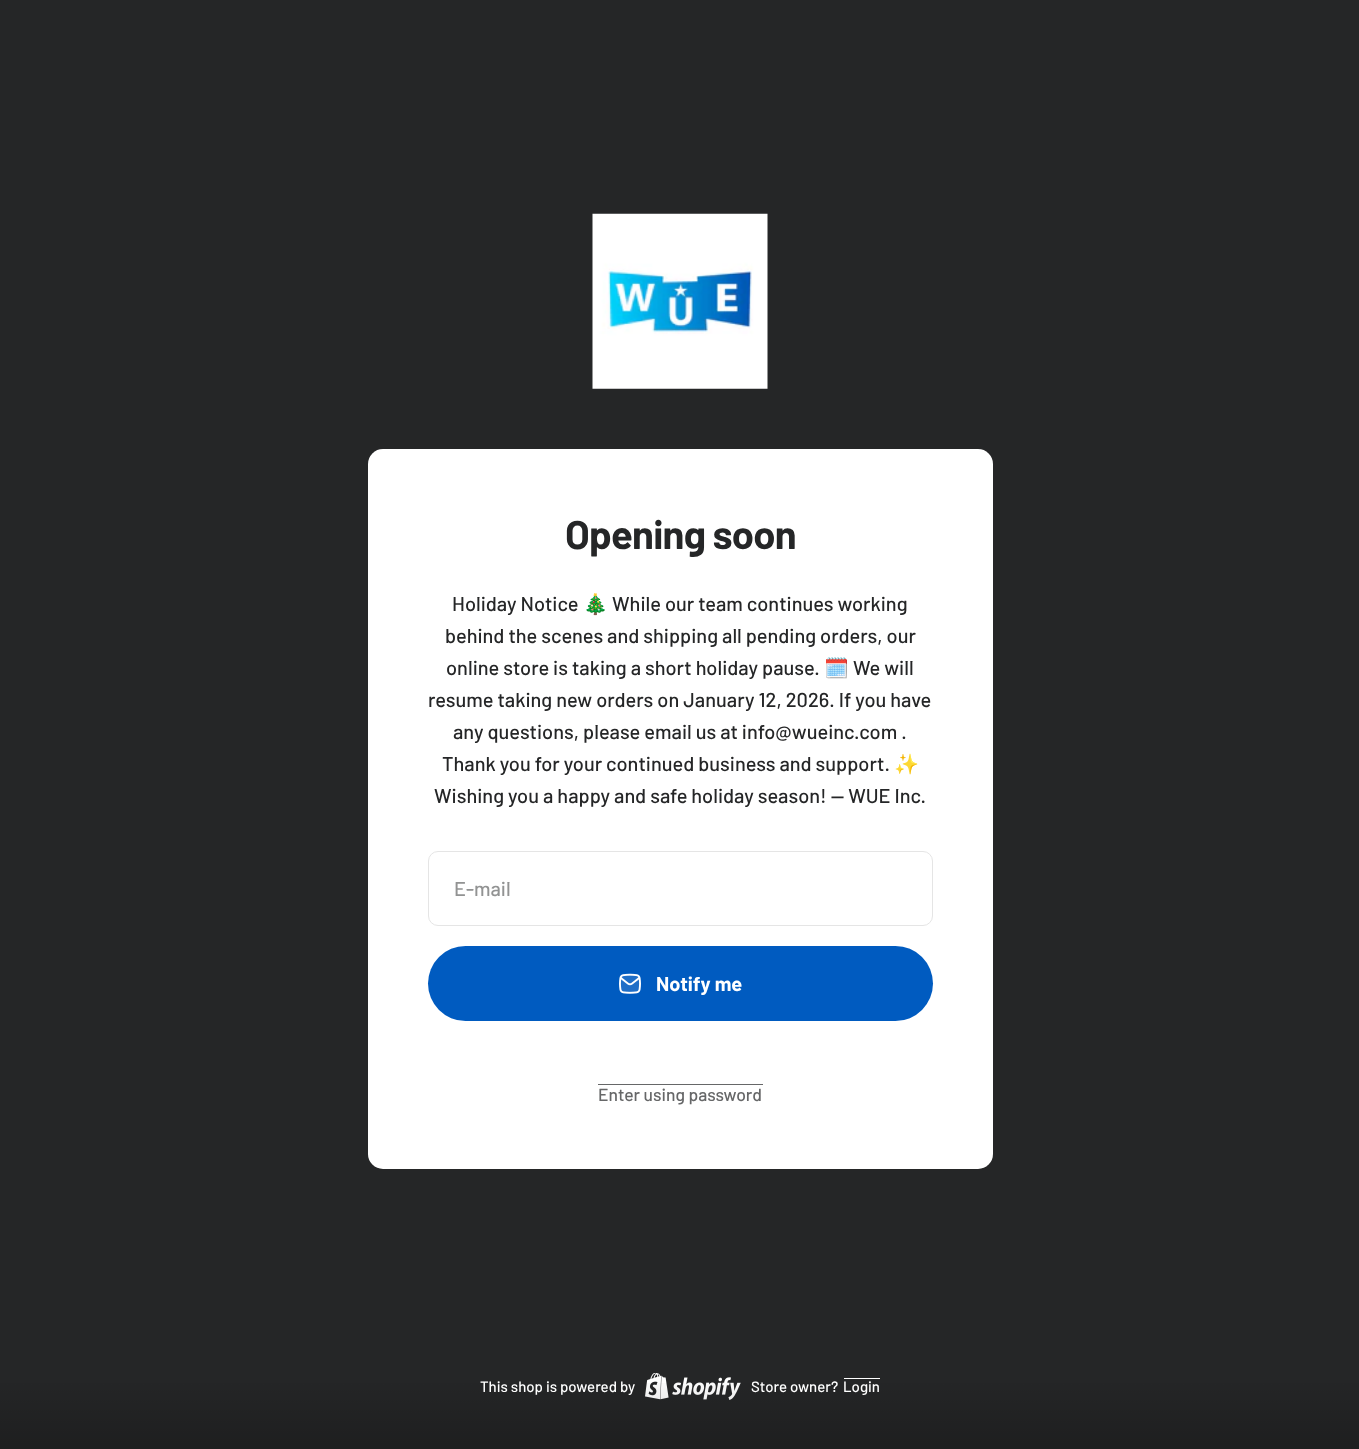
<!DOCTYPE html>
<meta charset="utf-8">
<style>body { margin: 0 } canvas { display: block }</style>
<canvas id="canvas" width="1359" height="1449"></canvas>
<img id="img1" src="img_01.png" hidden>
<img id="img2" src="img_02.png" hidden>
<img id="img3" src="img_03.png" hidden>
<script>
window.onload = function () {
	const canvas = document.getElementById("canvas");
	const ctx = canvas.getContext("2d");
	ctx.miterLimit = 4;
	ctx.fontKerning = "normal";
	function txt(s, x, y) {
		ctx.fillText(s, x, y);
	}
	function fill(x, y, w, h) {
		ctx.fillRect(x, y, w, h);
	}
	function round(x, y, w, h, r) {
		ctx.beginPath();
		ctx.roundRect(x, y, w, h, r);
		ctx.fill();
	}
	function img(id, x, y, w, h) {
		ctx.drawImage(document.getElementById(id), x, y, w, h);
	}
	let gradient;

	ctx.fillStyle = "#252627";
	fill(0, 0, 1359, 1449);
	img("img1", 592, 213, 176, 176);
	ctx.fillStyle = "#FFFFFF";
	round(368, 449, 625, 720, 15);
	ctx.beginPath();
	ctx.roundRect(428.5, 851.5, 504, 74, 9.5);
	ctx.strokeStyle = "#E5E5E5";
	ctx.stroke();
	ctx.fillStyle = "#005BC0";
	round(428, 946, 505, 75, 37.5);
	img("img2", 619, 973, 22, 21);
	ctx.fillStyle = "#666768";
	fill(598, 1084, 165, 1);
	img("img3", 645, 1373, 96, 27);
	ctx.fillStyle = "#FFFFFF";
	fill(844, 1378, 36, 1);
	gradient = ctx.createLinearGradient(680, 1375, 680, 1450);
	gradient.addColorStop(0, "rgba(0, 0, 0, 0)");
	gradient.addColorStop(1, "rgba(0, 0, 0, 0.2)");
	ctx.fillStyle = gradient;
	fill(0, 1383, 1359, 66);
	ctx.letterSpacing = "-0.75px";
	ctx.font = "bold 40px Barlow";
	ctx.fillStyle = "#252627";
	txt("Opening soon", 565, 549);
	ctx.letterSpacing = "0px";
	ctx.font = "500 20px Barlow";
	txt("Holiday Notice", 452, 611);
	ctx.font = "20px Noto Color Emoji";
	txt("🎄", 583, 611);
	ctx.font = "500 20px Barlow";
	txt("While our team continues working", 612, 611);
	txt("behind the scenes and shipping all pending orders, our", 445, 643);
	txt("online store is taking a short holiday pause.", 446, 675);
	ctx.font = "20px Noto Color Emoji";
	txt("🗓️", 824, 675);
	ctx.font = "500 20px Barlow";
	txt("We will", 853, 675);
	txt("resume taking new orders on January 12, 2026. If you have", 428, 707);
	txt("any questions, please email us at info@wueinc.com .", 453, 739);
	txt("Thank you for your continued business and support.", 442, 771);
	ctx.font = "20px Noto Color Emoji";
	txt("✨", 894, 771);
	ctx.font = "500 20px Barlow";
	txt("Wishing you a happy and safe holiday season! — WUE Inc.", 434, 803);
	ctx.fillStyle = "#929393";
	txt("E-mail", 454, 896);
	ctx.font = "bold 20px Barlow";
	ctx.fillStyle = "#FFFFFF";
	txt("Notify me", 656, 991);
	ctx.font = "500 17.5px Barlow";
	ctx.fillStyle = "#666768";
	txt("Enter using password", 598, 1101);
	ctx.font = "500 15px Barlow";
	ctx.fillStyle = "#FFFFFF";
	txt("This shop is powered by", 480, 1392);
	txt("Store owner?", 751, 1392);
	txt("Login", 843, 1392);
};
</script>
